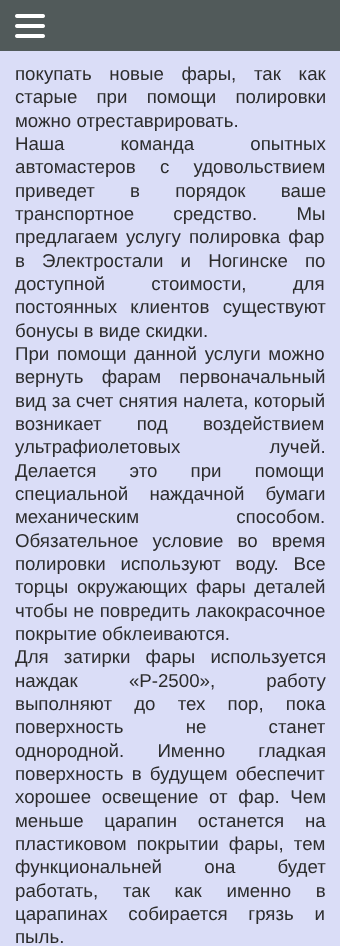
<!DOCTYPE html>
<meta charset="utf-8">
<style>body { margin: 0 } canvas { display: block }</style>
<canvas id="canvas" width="340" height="946"></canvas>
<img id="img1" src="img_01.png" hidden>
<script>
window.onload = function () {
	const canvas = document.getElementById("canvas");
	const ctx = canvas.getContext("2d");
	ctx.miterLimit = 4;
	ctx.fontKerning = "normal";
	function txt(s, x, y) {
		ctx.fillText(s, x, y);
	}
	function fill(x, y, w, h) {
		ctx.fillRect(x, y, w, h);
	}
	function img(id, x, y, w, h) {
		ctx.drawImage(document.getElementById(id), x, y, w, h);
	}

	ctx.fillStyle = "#DADDF7";
	fill(0, 0, 340, 946);
	ctx.fillStyle = "rgba(79, 88, 88, 0.99)";
	fill(0, 0, 340, 51);
	img("img1", 15, 14, 30, 24);
	ctx.wordSpacing = "12.5px";
	ctx.font = "18.7px Liberation Sans";
	ctx.fillStyle = "#2C2C2C";
	txt("покупать новые фары, так как", 15, 80);
	ctx.wordSpacing = "14px";
	txt("старые при помощи полировки", 15, 103);
	ctx.wordSpacing = "0px";
	txt("можно отреставрировать.", 15, 127);
	ctx.wordSpacing = "51px";
	txt("Наша команда опытных", 15, 150);
	ctx.wordSpacing = "19px";
	txt("автомастеров с удовольствием", 15, 173);
	ctx.wordSpacing = "30px";
	txt("приведет в порядок ваше", 15, 197);
	ctx.wordSpacing = "34px";
	txt("транспортное средство. Мы", 15, 220);
	ctx.wordSpacing = "3px";
	txt("предлагаем услугу полировка фар", 15, 243);
	ctx.wordSpacing = "12px";
	txt("в Электростали и Ногинске по", 15, 267);
	ctx.wordSpacing = "41px";
	txt("доступной стоимости, для", 15, 290);
	ctx.wordSpacing = "8px";
	txt("постоянных клиентов существуют", 15, 313);
	ctx.wordSpacing = "0px";
	txt("бонусы в виде скидки.", 15, 337);
	ctx.wordSpacing = "2.5px";
	txt("При помощи данной услуги можно", 15, 360);
	ctx.wordSpacing = "13px";
	txt("вернуть фарам первоначальный", 15, 383);
	ctx.wordSpacing = "0.25px";
	txt("вид за счет снятия налета, который", 15, 407);
	ctx.wordSpacing = "30px";
	txt("возникает под воздействием", 15, 430);
	ctx.wordSpacing = "84px";
	txt("ультрафиолетовых лучей.", 15, 453);
	ctx.wordSpacing = "28px";
	txt("Делается это при помощи", 15, 477);
	ctx.wordSpacing = "16px";
	txt("специальной наждачной бумаги", 15, 500);
	ctx.wordSpacing = "92px";
	txt("механическим способом.", 15, 523);
	ctx.wordSpacing = "9px";
	txt("Обязательное условие во время", 15, 547);
	ctx.wordSpacing = "9.5px";
	txt("полировки используют воду. Все", 15, 570);
	ctx.wordSpacing = "3.5px";
	txt("торцы окружающих фары деталей", 15, 593);
	ctx.wordSpacing = "0.5px";
	txt("чтобы не повредить лакокрасочное", 15, 617);
	ctx.wordSpacing = "0px";
	txt("покрытие обклеиваются.", 15, 640);
	ctx.wordSpacing = "10px";
	txt("Для затирки фары используется", 15, 663);
	ctx.wordSpacing = "46px";
	txt("наждак «Р-2500», работу", 15, 687);
	ctx.wordSpacing = "17px";
	txt("выполняют до тех пор, пока", 15, 710);
	ctx.wordSpacing = "57px";
	txt("поверхность не станет", 15, 733);
	ctx.wordSpacing = "28px";
	txt("однородной. Именно гладкая", 15, 757);
	ctx.wordSpacing = "3px";
	txt("поверхность в будущем обеспечит", 15, 780);
	ctx.wordSpacing = "5.5px";
	txt("хорошее освещение от фар. Чем", 15, 803);
	ctx.wordSpacing = "15.5px";
	txt("меньше царапин останется на", 15, 827);
	ctx.wordSpacing = "5px";
	txt("пластиковом покрытии фары, тем", 15, 850);
	ctx.wordSpacing = "37px";
	txt("функциональней она будет", 15, 873);
	ctx.wordSpacing = "19.5px";
	txt("работать, так как именно в", 15, 897);
	ctx.wordSpacing = "15.5px";
	txt("царапинах собирается грязь и", 15, 920);
	ctx.wordSpacing = "0px";
	txt("пыль.", 15, 943);
};
</script>
